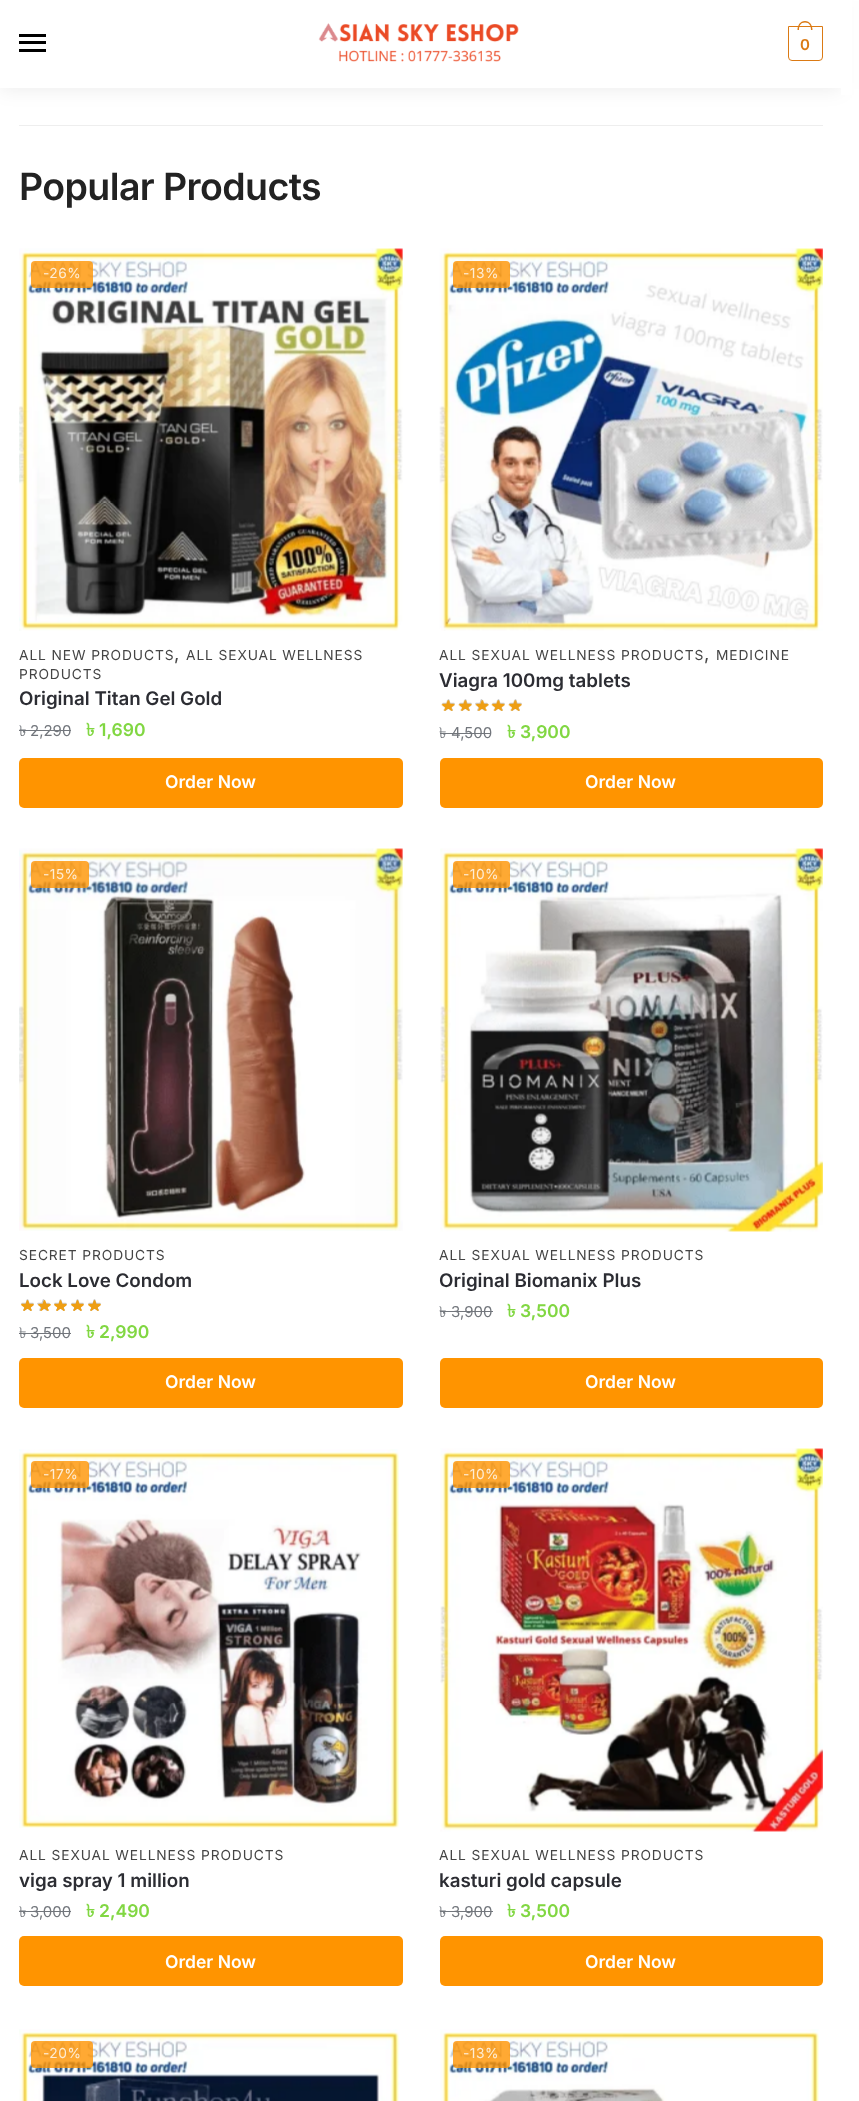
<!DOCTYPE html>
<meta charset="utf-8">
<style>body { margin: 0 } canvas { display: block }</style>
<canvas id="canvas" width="859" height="2101"></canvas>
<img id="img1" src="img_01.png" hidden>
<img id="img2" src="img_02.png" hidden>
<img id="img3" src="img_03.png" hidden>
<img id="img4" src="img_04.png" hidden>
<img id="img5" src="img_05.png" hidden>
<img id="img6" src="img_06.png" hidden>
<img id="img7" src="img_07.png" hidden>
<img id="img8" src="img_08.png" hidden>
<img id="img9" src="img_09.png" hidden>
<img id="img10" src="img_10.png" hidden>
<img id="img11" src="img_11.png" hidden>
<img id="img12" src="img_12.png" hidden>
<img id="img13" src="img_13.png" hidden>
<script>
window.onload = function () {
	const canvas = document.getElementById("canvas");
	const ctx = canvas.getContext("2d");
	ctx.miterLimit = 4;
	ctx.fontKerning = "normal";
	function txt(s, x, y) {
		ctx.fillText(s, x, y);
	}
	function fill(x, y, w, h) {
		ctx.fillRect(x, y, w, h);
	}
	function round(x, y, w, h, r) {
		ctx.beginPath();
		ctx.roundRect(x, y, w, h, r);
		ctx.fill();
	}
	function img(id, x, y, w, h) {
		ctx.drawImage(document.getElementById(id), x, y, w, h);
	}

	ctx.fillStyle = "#FFFFFF";
	fill(0, 0, 859, 2101);
	ctx.fillStyle = "rgba(0, 0, 0, 0.08)";
	ctx.filter = "blur(9.5px)";
	ctx.beginPath();
	ctx.rect(0, 1, 841, 88);
	ctx.fill();
	ctx.filter = "none";
	ctx.fillStyle = "#FFFFFF";
	fill(0, 0, 841, 88);
	ctx.fillStyle = "#000000";
	fill(19, 34, 27, 3);
	fill(19, 41, 27, 3);
	fill(19, 49, 27, 3);
	img("img1", 318, 23, 201, 39);
	ctx.beginPath();
	ctx.roundRect(788.5, 26.5, 34, 34, [0, 0, 3.5, 3.5]);
	ctx.strokeStyle = "#DB7A14";
	ctx.stroke();
	ctx.fillStyle = "#DB7A14";
	ctx.beginPath();
	ctx.moveTo(805, 21);
	ctx.bezierCurveTo(810, 21, 812.5, 25.5, 812.5, 30);
	ctx.lineTo(797.5, 30);
	ctx.bezierCurveTo(797.5, 25.5, 800, 21, 805, 21);
	ctx.closePath();
	ctx.moveTo(805, 22.5);
	ctx.bezierCurveTo(809.5, 22.5, 811, 26, 811, 30);
	ctx.lineTo(799, 30);
	ctx.bezierCurveTo(799, 26, 800.5, 22.5, 805, 22.5);
	ctx.closePath();
	ctx.fill("evenodd");
	ctx.fillStyle = "#FFFFFF";
	fill(841, 0, 11, 95);
	ctx.fillStyle = "#EEEEEE";
	fill(19, 125, 804, 1);
	img("img2", 19, 248, 384, 383);
	ctx.fillStyle = "rgba(255, 148, 0, 0.8)";
	round(31, 261, 62, 27, 4);
	ctx.fillStyle = "#72767C";
	fill(19, 730, 11, 1);
	fill(30, 730, 41, 1);
	ctx.fillStyle = "#FF9400";
	round(19, 758, 384, 50, 5);
	img("img3", 439, 248, 384, 383);
	ctx.fillStyle = "rgba(255, 148, 0, 0.8)";
	round(453, 261, 57, 27, 4);
	img("img4", 442, 699, 80, 12);
	img("img5", 441, 700, 81, 11);
	ctx.fillStyle = "#72767C";
	fill(451, 733, 40, 1);
	fill(440, 733, 11, 1);
	ctx.fillStyle = "#FF9400";
	round(440, 758, 383, 50, 5);
	img("img6", 19, 848, 384, 383);
	ctx.fillStyle = "rgba(255, 148, 0, 0.8)";
	round(31, 861, 58, 27, 4);
	img("img7", 21, 1299, 80, 12);
	img("img8", 21, 1300, 80, 11);
	ctx.fillStyle = "#72767C";
	fill(30, 1333, 41, 1);
	fill(19, 1333, 11, 1);
	ctx.fillStyle = "#FF9400";
	round(19, 1358, 384, 50, 5);
	img("img9", 440, 848, 383, 384);
	ctx.fillStyle = "rgba(255, 148, 0, 0.8)";
	round(453, 861, 57, 27, 4);
	ctx.fillStyle = "#72767C";
	fill(440, 1311, 11, 1);
	fill(451, 1311, 42, 1);
	ctx.fillStyle = "#FF9400";
	round(440, 1358, 383, 50, 5);
	img("img10", 19, 1449, 380, 379);
	ctx.fillStyle = "rgba(255, 148, 0, 0.8)";
	round(31, 1461, 58, 27, 4);
	ctx.fillStyle = "#72767C";
	fill(19, 1911, 11, 1);
	fill(30, 1911, 41, 1);
	ctx.fillStyle = "#FF9400";
	round(19, 1936, 384, 50, 5);
	img("img11", 440, 1448, 383, 384);
	ctx.fillStyle = "rgba(255, 148, 0, 0.8)";
	round(453, 1461, 57, 27, 4);
	ctx.fillStyle = "#72767C";
	fill(440, 1911, 11, 1);
	fill(451, 1911, 42, 1);
	ctx.fillStyle = "#FF9400";
	round(440, 1936, 383, 50, 5);
	img("img12", 19, 2029, 381, 72);
	ctx.fillStyle = "rgba(255, 148, 0, 0.8)";
	round(31, 2041, 62, 27, 4);
	img("img13", 440, 2029, 379, 72);
	round(453, 2041, 57, 27, 4);
	ctx.letterSpacing = "-1px";
	ctx.font = "600 15px Inter";
	ctx.fillStyle = "#DB7A14";
	txt("0", 800, 50);
	ctx.letterSpacing = "-0.6px";
	ctx.font = "600 37.5px Inter";
	ctx.fillStyle = "#222222";
	txt("Popular Products", 19, 200);
	ctx.letterSpacing = "0.5px";
	ctx.font = "13.75px Inter";
	ctx.fillStyle = "#FEEDD6";
	txt("-26%", 43, 278);
	ctx.letterSpacing = "0.9px";
	ctx.fillStyle = "#444444";
	txt("ALL NEW PRODUCTS", 19, 660);
	ctx.font = "18.75px Inter";
	txt(",", 174, 660);
	ctx.font = "13.75px Inter";
	txt("ALL SEXUAL WELLNESS", 186, 660);
	txt("PRODUCTS", 19, 679);
	ctx.letterSpacing = "0px";
	ctx.font = "600 18.75px Inter";
	ctx.fillStyle = "#2C2D33";
	txt("Original Titan Gel Gold", 19, 705);
	ctx.font = "15px Lohit Bengali";
	ctx.fillStyle = "#72767C";
	txt("৳", 19, 736);
	ctx.font = "15px Inter";
	txt("2,290", 30, 736);
	ctx.font = "bold 17.5px Lohit Bengali";
	ctx.fillStyle = "#81D742";
	txt("৳", 86, 736);
	ctx.font = "600 17.5px Inter";
	txt("1,690", 99, 736);
	ctx.fillStyle = "#FFFFFF";
	txt("Order Now", 165, 788);
	ctx.letterSpacing = "0.5px";
	ctx.font = "13.75px Inter";
	ctx.fillStyle = "#FEEDD6";
	txt("-13%", 463, 278);
	ctx.letterSpacing = "0.9px";
	ctx.fillStyle = "#444444";
	txt("ALL SEXUAL WELLNESS PRODUCTS", 439, 660);
	ctx.font = "18.75px Inter";
	txt(",", 704, 660);
	ctx.font = "13.75px Inter";
	txt("MEDICINE", 716, 660);
	ctx.letterSpacing = "0px";
	ctx.font = "600 18.75px Inter";
	ctx.fillStyle = "#2C2D33";
	txt("Viagra 100mg tablets", 439, 687);
	ctx.font = "15px Lohit Bengali";
	ctx.fillStyle = "#72767C";
	txt("৳", 439, 738);
	ctx.font = "15px Inter";
	txt("4,500", 451, 738);
	ctx.font = "bold 17.5px Lohit Bengali";
	ctx.fillStyle = "#81D742";
	txt("৳", 507, 738);
	ctx.font = "600 17.5px Inter";
	txt("3,900", 520, 738);
	ctx.fillStyle = "#FFFFFF";
	txt("Order Now", 585, 788);
	ctx.letterSpacing = "0.5px";
	ctx.font = "13.75px Inter";
	ctx.fillStyle = "#FEEDD6";
	txt("-15%", 43, 879);
	ctx.letterSpacing = "0.9px";
	ctx.fillStyle = "#444444";
	txt("SECRET PRODUCTS", 19, 1260);
	ctx.letterSpacing = "0px";
	ctx.font = "600 18.75px Inter";
	ctx.fillStyle = "#2C2D33";
	txt("Lock Love Condom", 19, 1287);
	ctx.font = "15px Lohit Bengali";
	ctx.fillStyle = "#72767C";
	txt("৳", 19, 1338);
	ctx.font = "15px Inter";
	txt("3,500", 30, 1338);
	ctx.font = "bold 17.5px Lohit Bengali";
	ctx.fillStyle = "#81D742";
	txt("৳", 86, 1338);
	ctx.font = "600 17.5px Inter";
	txt("2,990", 99, 1338);
	ctx.fillStyle = "#FFFFFF";
	txt("Order Now", 165, 1388);
	ctx.letterSpacing = "0.5px";
	ctx.font = "13.75px Inter";
	ctx.fillStyle = "#FEEDD6";
	txt("-10%", 463, 879);
	ctx.letterSpacing = "0.9px";
	ctx.fillStyle = "#444444";
	txt("ALL SEXUAL WELLNESS PRODUCTS", 439, 1260);
	ctx.letterSpacing = "0px";
	ctx.font = "600 18.75px Inter";
	ctx.fillStyle = "#2C2D33";
	txt("Original Biomanix Plus", 439, 1287);
	ctx.font = "15px Lohit Bengali";
	ctx.fillStyle = "#72767C";
	txt("৳", 439, 1317);
	ctx.font = "15px Inter";
	txt("3,900", 451, 1317);
	ctx.font = "bold 17.5px Lohit Bengali";
	ctx.fillStyle = "#81D742";
	txt("৳", 507, 1317);
	ctx.font = "600 17.5px Inter";
	txt("3,500", 520, 1317);
	ctx.fillStyle = "#FFFFFF";
	txt("Order Now", 585, 1388);
	ctx.letterSpacing = "0.5px";
	ctx.font = "13.75px Inter";
	ctx.fillStyle = "#FEEDD6";
	txt("-17%", 43, 1479);
	ctx.letterSpacing = "0.9px";
	ctx.fillStyle = "#444444";
	txt("ALL SEXUAL WELLNESS PRODUCTS", 19, 1860);
	ctx.letterSpacing = "0px";
	ctx.font = "600 18.75px Inter";
	ctx.fillStyle = "#2C2D33";
	txt("viga spray 1 million", 19, 1887);
	ctx.font = "15px Lohit Bengali";
	ctx.fillStyle = "#72767C";
	txt("৳", 19, 1917);
	ctx.font = "15px Inter";
	txt("3,000", 30, 1917);
	ctx.font = "bold 17.5px Lohit Bengali";
	ctx.fillStyle = "#81D742";
	txt("৳", 86, 1917);
	ctx.font = "600 17.5px Inter";
	txt("2,490", 99, 1917);
	ctx.fillStyle = "#FFFFFF";
	txt("Order Now", 165, 1968);
	ctx.letterSpacing = "0.5px";
	ctx.font = "13.75px Inter";
	ctx.fillStyle = "#FEEDD6";
	txt("-10%", 463, 1479);
	ctx.letterSpacing = "0.9px";
	ctx.fillStyle = "#444444";
	txt("ALL SEXUAL WELLNESS PRODUCTS", 439, 1860);
	ctx.letterSpacing = "0px";
	ctx.font = "600 18.75px Inter";
	ctx.fillStyle = "#2C2D33";
	txt("kasturi gold capsule", 439, 1887);
	ctx.font = "15px Lohit Bengali";
	ctx.fillStyle = "#72767C";
	txt("৳", 439, 1917);
	ctx.font = "15px Inter";
	txt("3,900", 451, 1917);
	ctx.font = "bold 17.5px Lohit Bengali";
	ctx.fillStyle = "#81D742";
	txt("৳", 507, 1917);
	ctx.font = "600 17.5px Inter";
	txt("3,500", 520, 1917);
	ctx.fillStyle = "#FFFFFF";
	txt("Order Now", 585, 1968);
	ctx.letterSpacing = "0.5px";
	ctx.font = "13.75px Inter";
	ctx.fillStyle = "#FEEDD6";
	txt("-20%", 43, 2058);
	txt("-13%", 463, 2058);
};
</script>
